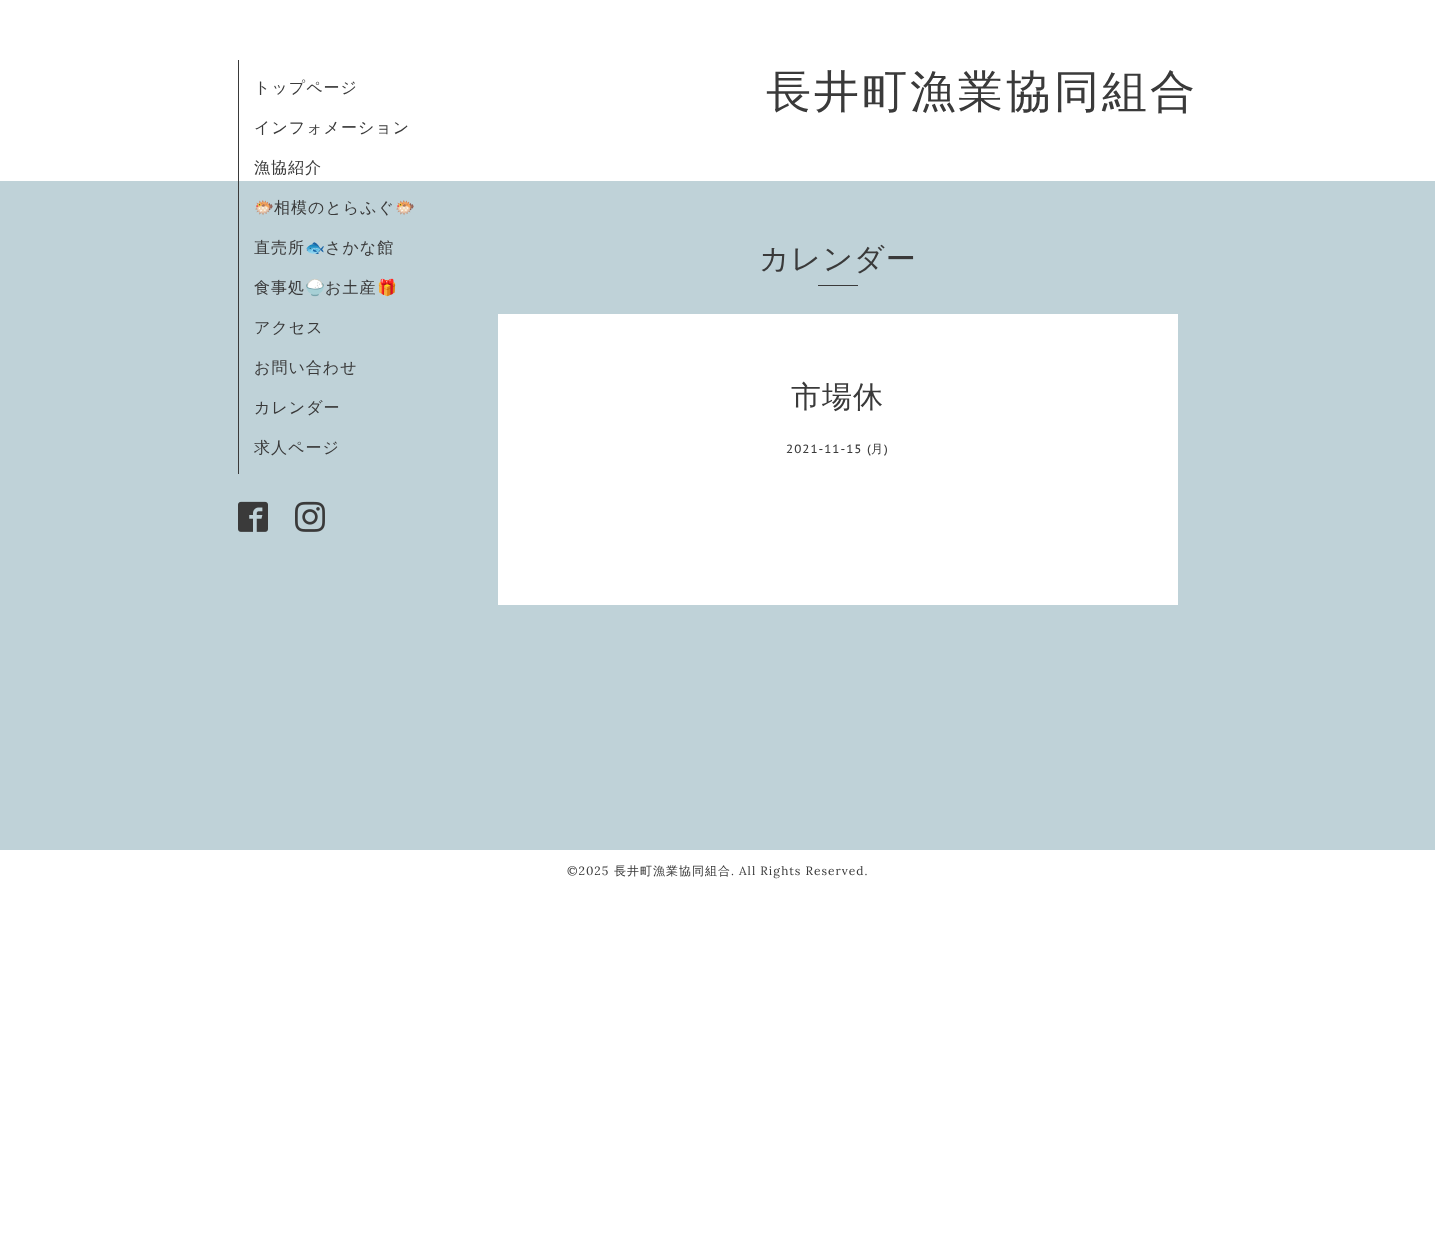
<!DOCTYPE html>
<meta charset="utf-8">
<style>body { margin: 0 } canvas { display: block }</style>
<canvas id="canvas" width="1435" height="1252"></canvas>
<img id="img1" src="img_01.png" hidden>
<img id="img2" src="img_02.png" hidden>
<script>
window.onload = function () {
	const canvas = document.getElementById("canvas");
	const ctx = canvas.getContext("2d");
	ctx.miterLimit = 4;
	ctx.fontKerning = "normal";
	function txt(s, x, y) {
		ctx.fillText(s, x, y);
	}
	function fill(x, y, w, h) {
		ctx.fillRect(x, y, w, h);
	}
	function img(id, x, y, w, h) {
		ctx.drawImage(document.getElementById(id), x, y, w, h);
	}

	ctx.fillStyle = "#FFFFFF";
	fill(0, 0, 1435, 1252);
	ctx.fillStyle = "#BFD2D8";
	fill(0, 181, 1435, 669);
	ctx.fillStyle = "#3A3A3A";
	fill(238, 60, 1, 414);
	img("img1", 238, 501, 30, 31);
	img("img2", 295, 501, 30, 31);
	fill(818, 285, 40, 1);
	ctx.fillStyle = "#FFFFFF";
	fill(498, 314, 680, 291);
	ctx.letterSpacing = "1px";
	ctx.font = "500 16px WenQuanYi Zen Hei";
	ctx.fillStyle = "#3A3A3A";
	txt("トップページ", 254, 93);
	txt("インフォメーション", 254, 133);
	txt("漁協紹介", 254, 173);
	ctx.font = "16px Noto Color Emoji";
	txt("🐡", 254, 213);
	ctx.font = "500 16px WenQuanYi Zen Hei";
	txt("相模のとらふぐ", 274, 213);
	ctx.font = "16px Noto Color Emoji";
	txt("🐡", 395, 213);
	ctx.font = "500 16px WenQuanYi Zen Hei";
	txt("直売所", 254, 253);
	ctx.font = "16px Noto Color Emoji";
	txt("🐟", 305, 253);
	ctx.font = "500 16px WenQuanYi Zen Hei";
	txt("さかな館", 325, 253);
	txt("食事処", 254, 293);
	ctx.font = "16px Noto Color Emoji";
	txt("🍚", 305, 293);
	ctx.font = "500 16px WenQuanYi Zen Hei";
	txt("お土産", 325, 293);
	ctx.font = "16px Noto Color Emoji";
	txt("🎁", 377, 293);
	ctx.font = "500 16px WenQuanYi Zen Hei";
	txt("アクセス", 254, 333);
	txt("お問い合わせ", 254, 373);
	txt("カレンダー", 254, 413);
	txt("求人ページ", 254, 453);
	ctx.letterSpacing = "3px";
	ctx.font = "500 45px WenQuanYi Zen Hei";
	txt("長井町漁業協同組合", 766, 107);
	ctx.letterSpacing = "1px";
	ctx.font = "500 30px WenQuanYi Zen Hei";
	txt("カレンダー", 759, 269);
	txt("市場休", 791, 407);
	ctx.font = "12px PT Sans Caption";
	txt("2021-11-15 (", 786, 453);
	ctx.font = "500 12px WenQuanYi Zen Hei";
	txt("月", 871, 453);
	ctx.font = "12px PT Sans Caption";
	txt(")", 884, 453);
	ctx.font = "12px Lora";
	txt("©2025", 567, 875);
	ctx.font = "500 12px WenQuanYi Zen Hei";
	txt("長井町漁業協同組合", 614, 875);
	ctx.font = "12px Lora";
	txt(". All Rights Reserved.", 731, 875);
};
</script>
